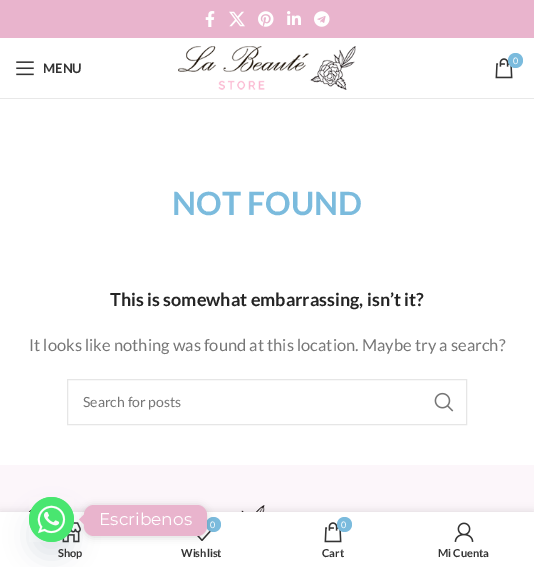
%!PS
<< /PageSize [534 567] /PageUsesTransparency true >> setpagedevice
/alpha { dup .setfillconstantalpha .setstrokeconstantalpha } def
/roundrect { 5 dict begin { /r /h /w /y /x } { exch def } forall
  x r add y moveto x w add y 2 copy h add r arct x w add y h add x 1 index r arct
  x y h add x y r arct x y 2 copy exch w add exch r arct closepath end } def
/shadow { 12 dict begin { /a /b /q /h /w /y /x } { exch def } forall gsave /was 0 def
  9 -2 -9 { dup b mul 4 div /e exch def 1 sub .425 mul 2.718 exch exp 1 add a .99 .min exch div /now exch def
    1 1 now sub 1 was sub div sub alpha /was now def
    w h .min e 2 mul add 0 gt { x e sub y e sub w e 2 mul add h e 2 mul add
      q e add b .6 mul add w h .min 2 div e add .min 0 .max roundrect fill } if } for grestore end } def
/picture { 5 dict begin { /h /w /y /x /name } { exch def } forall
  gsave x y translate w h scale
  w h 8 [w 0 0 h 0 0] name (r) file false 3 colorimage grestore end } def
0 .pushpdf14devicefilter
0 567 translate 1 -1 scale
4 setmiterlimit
1 setgray
0 0 534 567 rectfill
0.914 0.706 0.804 setrgbcolor
0 0 534 38 rectfill
(img1.rgb) 205 11 10 16 picture
(img2.rgb) 229 11 16 16 picture
(img3.rgb) 258 11 16 16 picture
(img4.rgb) 287 11 14 14 picture
(img5.rgb) 314 11 16 16 picture
0.91 setgray
0 98 534 1 rectfill
(img6.rgb) 178 46 178 44 picture
(img7.rgb) 495 58 18 21 picture
0.482 0.733 0.867 setrgbcolor
newpath 515.5 60.5 7.5 0 360 arc closepath fill
/Lato-Regular [9 0 0 -9 0 0] selectfont
1 setgray
513 64 moveto (0) show
(img8.rgb) 16 61 18 15 picture
/Lato-Bold [13 0 0 -13 0 0] selectfont
0.2 setgray
43 73 moveto (MENU) show
/Lato-Bold [32 0 0 -32 0 0] selectfont
0.482 0.733 0.867 setrgbcolor
172 215 moveto (NOT FOUND) show
/Lato-Bold [18 0 0 -18 0 0] selectfont
0.141 setgray
110 306 moveto (This is somewhat embarrassing, isn’t it?) show
/Lato-Regular [16.5 0 0 -16.5 0 0] selectfont
0.463 setgray
29 351 moveto (It looks like nothing was found at this location. Maybe try a search?) show
0.902 setgray
67.5 379.5 399 45 rectstroke
/Lato-Regular [14 0 0 -14 0 0] selectfont
0.463 setgray
83 407 moveto (Search for posts) show
(img9.rgb) 434 392 20 20 picture
0.988 0.965 0.98 setrgbcolor
0 465 534 47 rectfill
(img10.rgb) 28 505 237 7 picture
0 setgray
0 512 534 55 0 4.5 0.12 shadow
1 setgray
0 512 534 55 rectfill
(img12.rgb) 62 522 19 21 picture
0.286 0.408 0.494 setrgbcolor
29 513 45 45 22.5 12 0.16 shadow
(img11.rgb) 29 497 45 45 picture
(img13.rgb) 197 530 15 11 picture
0.482 0.733 0.867 setrgbcolor
newpath 213.5 524.5 7.5 0 360 arc closepath fill
0 setgray
84 506 123 31 10 4 0.15 shadow
0.914 0.706 0.804 setrgbcolor
84 505 123 31 10 roundrect fill
newpath 84 514.5 moveto 84 524.5 lineto 79 519.5 lineto closepath fill
/Montserrat-Thin [17 0 0 -17 0 0] selectfont
1 setgray
99 525 moveto (Escribenos) show
/Lato-Bold [11 0 0 -11 0 0] selectfont
0.2 setgray
58 557 moveto (Shop) show
/Lato-Regular [9 0 0 -9 0 0] selectfont
1 setgray
210 528 moveto (0) show
/Lato-Bold [11 0 0 -11 0 0] selectfont
0.2 setgray
181 557 moveto (Wishlist) show
(img7.rgb) 324 522 18 21 picture
0.482 0.733 0.867 setrgbcolor
newpath 344.5 524.5 7.5 0 360 arc closepath fill
/Lato-Regular [9 0 0 -9 0 0] selectfont
1 setgray
341 528 moveto (0) show
/Lato-Bold [11 0 0 -11 0 0] selectfont
0.2 setgray
322 557 moveto (Cart) show
(img14.rgb) 454 522 20 20 picture
438 557 moveto (Mi Cuenta) show
.poppdf14devicefilter showpage
